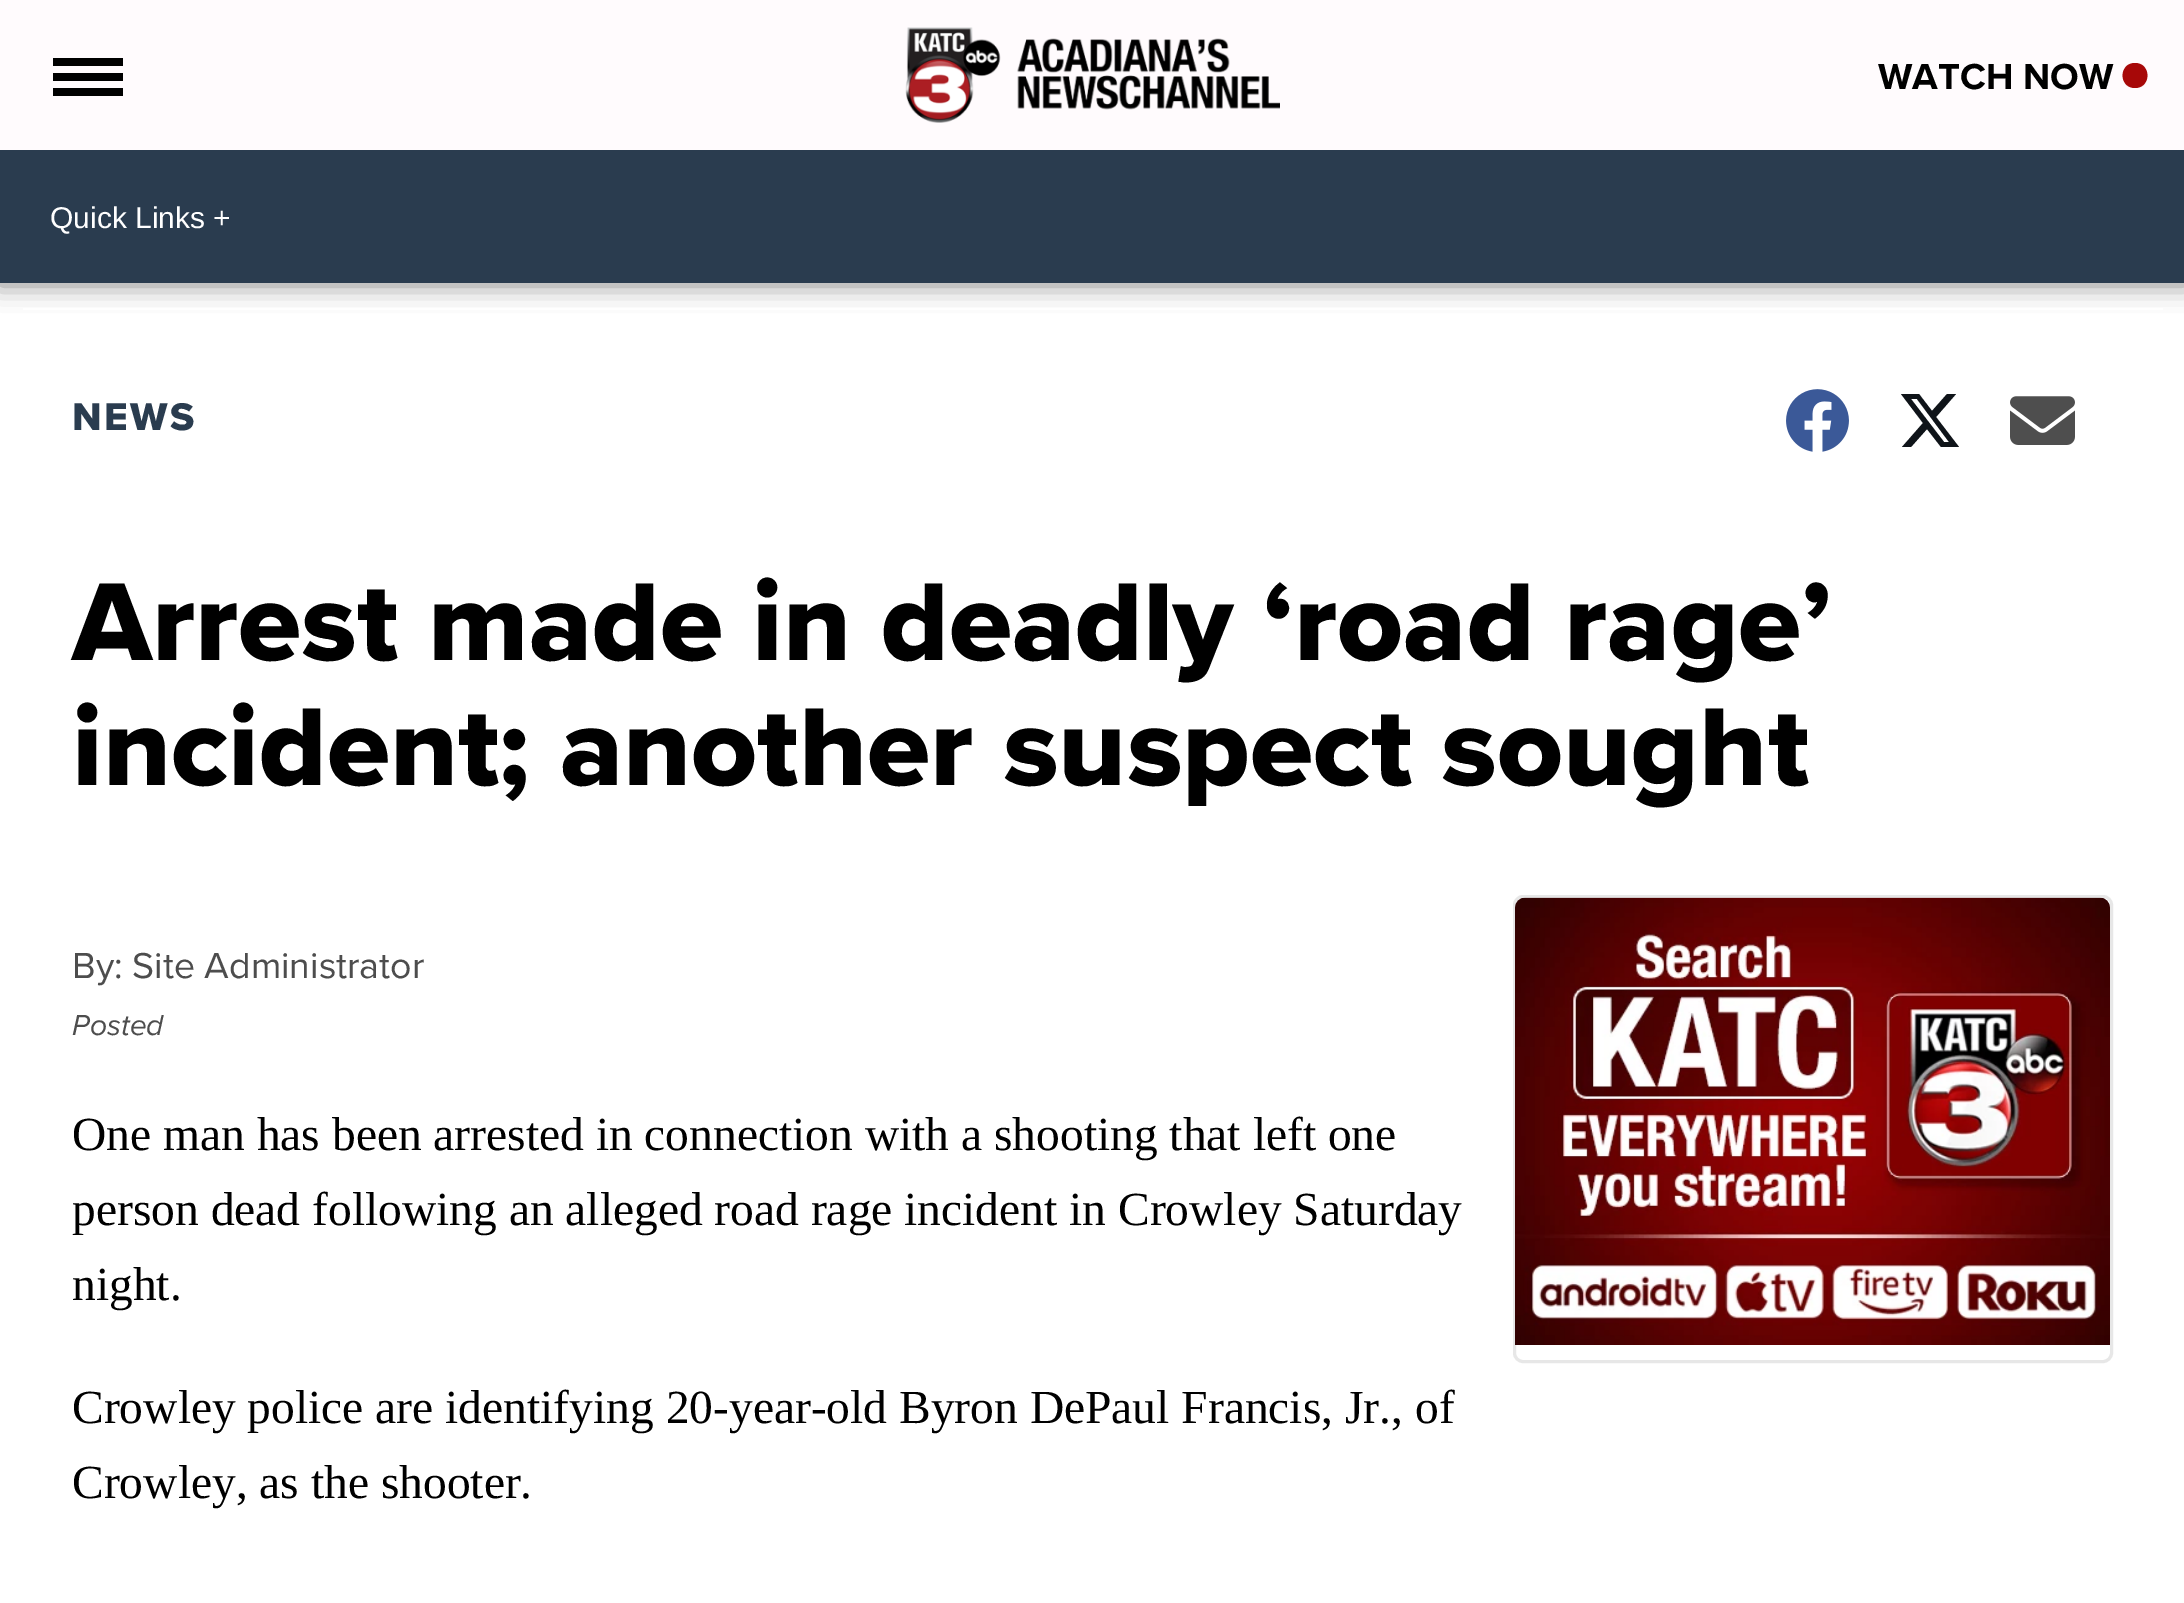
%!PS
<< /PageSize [2184 1603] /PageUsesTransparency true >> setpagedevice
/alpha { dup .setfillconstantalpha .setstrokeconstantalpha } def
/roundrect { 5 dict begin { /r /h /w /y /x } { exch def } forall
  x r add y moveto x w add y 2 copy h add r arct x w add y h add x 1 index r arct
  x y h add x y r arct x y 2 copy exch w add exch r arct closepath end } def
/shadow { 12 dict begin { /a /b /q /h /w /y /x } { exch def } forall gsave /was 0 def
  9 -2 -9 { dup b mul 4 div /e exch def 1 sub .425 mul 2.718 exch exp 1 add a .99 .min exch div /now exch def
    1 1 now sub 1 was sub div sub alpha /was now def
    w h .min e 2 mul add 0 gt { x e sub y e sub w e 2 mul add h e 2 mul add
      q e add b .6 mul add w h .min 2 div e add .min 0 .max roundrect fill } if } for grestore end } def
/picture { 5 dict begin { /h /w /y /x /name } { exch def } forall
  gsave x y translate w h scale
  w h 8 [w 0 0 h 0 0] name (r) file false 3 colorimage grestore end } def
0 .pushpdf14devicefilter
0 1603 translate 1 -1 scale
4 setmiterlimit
1 setgray
0 0 2184 1603 rectfill
0.38 setgray
-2 -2 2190 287 0 12.5 0.76 shadow
1 0.984 0.992 setrgbcolor
0 0 2184 150 rectfill
0 setgray
53 58 70 8 rectfill
53 73 70 8 rectfill
53 88 70 8 rectfill
(img1.rgb) 905 27 375 96 picture
/ProximaNova-Bold [37.5 0 0 -37.5 0 0] selectfont
1878 89 moveto (WATCH NOW) show
0.655 0.031 0.031 setrgbcolor
newpath 2135 88 moveto 2151.5 88 2151.5 63 2135 63 curveto 2118.5 63 2118.5 88 2135 88 curveto closepath fill
0.165 0.235 0.31 setrgbcolor
0 150 2184 133 rectfill
/LiberationSans-Regular [30 0 0 -30 0 0] selectfont
1 setgray
50 228 moveto (Quick Links +) show
23 308 2140 2 rectfill
/ProximaNova-ExtraBold [40 0 0 -40 0 0] selectfont
0.165 0.235 0.31 setrgbcolor
72 430 moveto 2.5 0 (NEWS) ashow
(img2.rgb) 1786 389 63 63 picture
0.059 0.078 0.098 setrgbcolor
newpath 1947 394 moveto 1956 394 lineto 1936 417 lineto 1959 447 lineto 1941 447 lineto 1927 429 lineto 1911 447 lineto 1902 447 lineto 1923 423 lineto 1901 394 lineto 1919 394 lineto 1932 411 lineto closepath 1944 442 moveto 1949 442 lineto 1917 399 lineto 1911 399 lineto closepath fill
(img3.rgb) 2010 396 65 49 picture
/ProximaNova-ExtraBold [115 0 0 -115 0 0] selectfont
0 setgray
72 660 moveto (Arrest made in deadly ‘road rage’) show
72 785 moveto (incident; another suspect sought) show
/ProximaNova-Regular [37.5 0 0 -37.5 0 0] selectfont
0.302 setgray
72 978 moveto (By: Site Administrator) show
/ProximaNova-Italic [30 0 0 -30 0 0] selectfont
72 1035 moveto (Posted) show
/LiberationSerif-Regular [47.5 0 0 -47.5 0 0] selectfont
0 setgray
72 1150 moveto (One man has been arrested in connection with a shooting that left one) show
72 1225 moveto (person dead following an alleged road rage incident in Crowley Saturday) show
72 1300 moveto (night.) show
72 1423 moveto (Crowley police are identifying 20-year-old Byron DePaul Francis, Jr., of) show
72 1498 moveto (Crowley, as the shooter.) show
0.906 setgray
3 setlinewidth
1514.5 896.5 597 465 8.5 roundrect stroke
(img4.rgb) 1515 897 595 448 picture
.poppdf14devicefilter showpage
